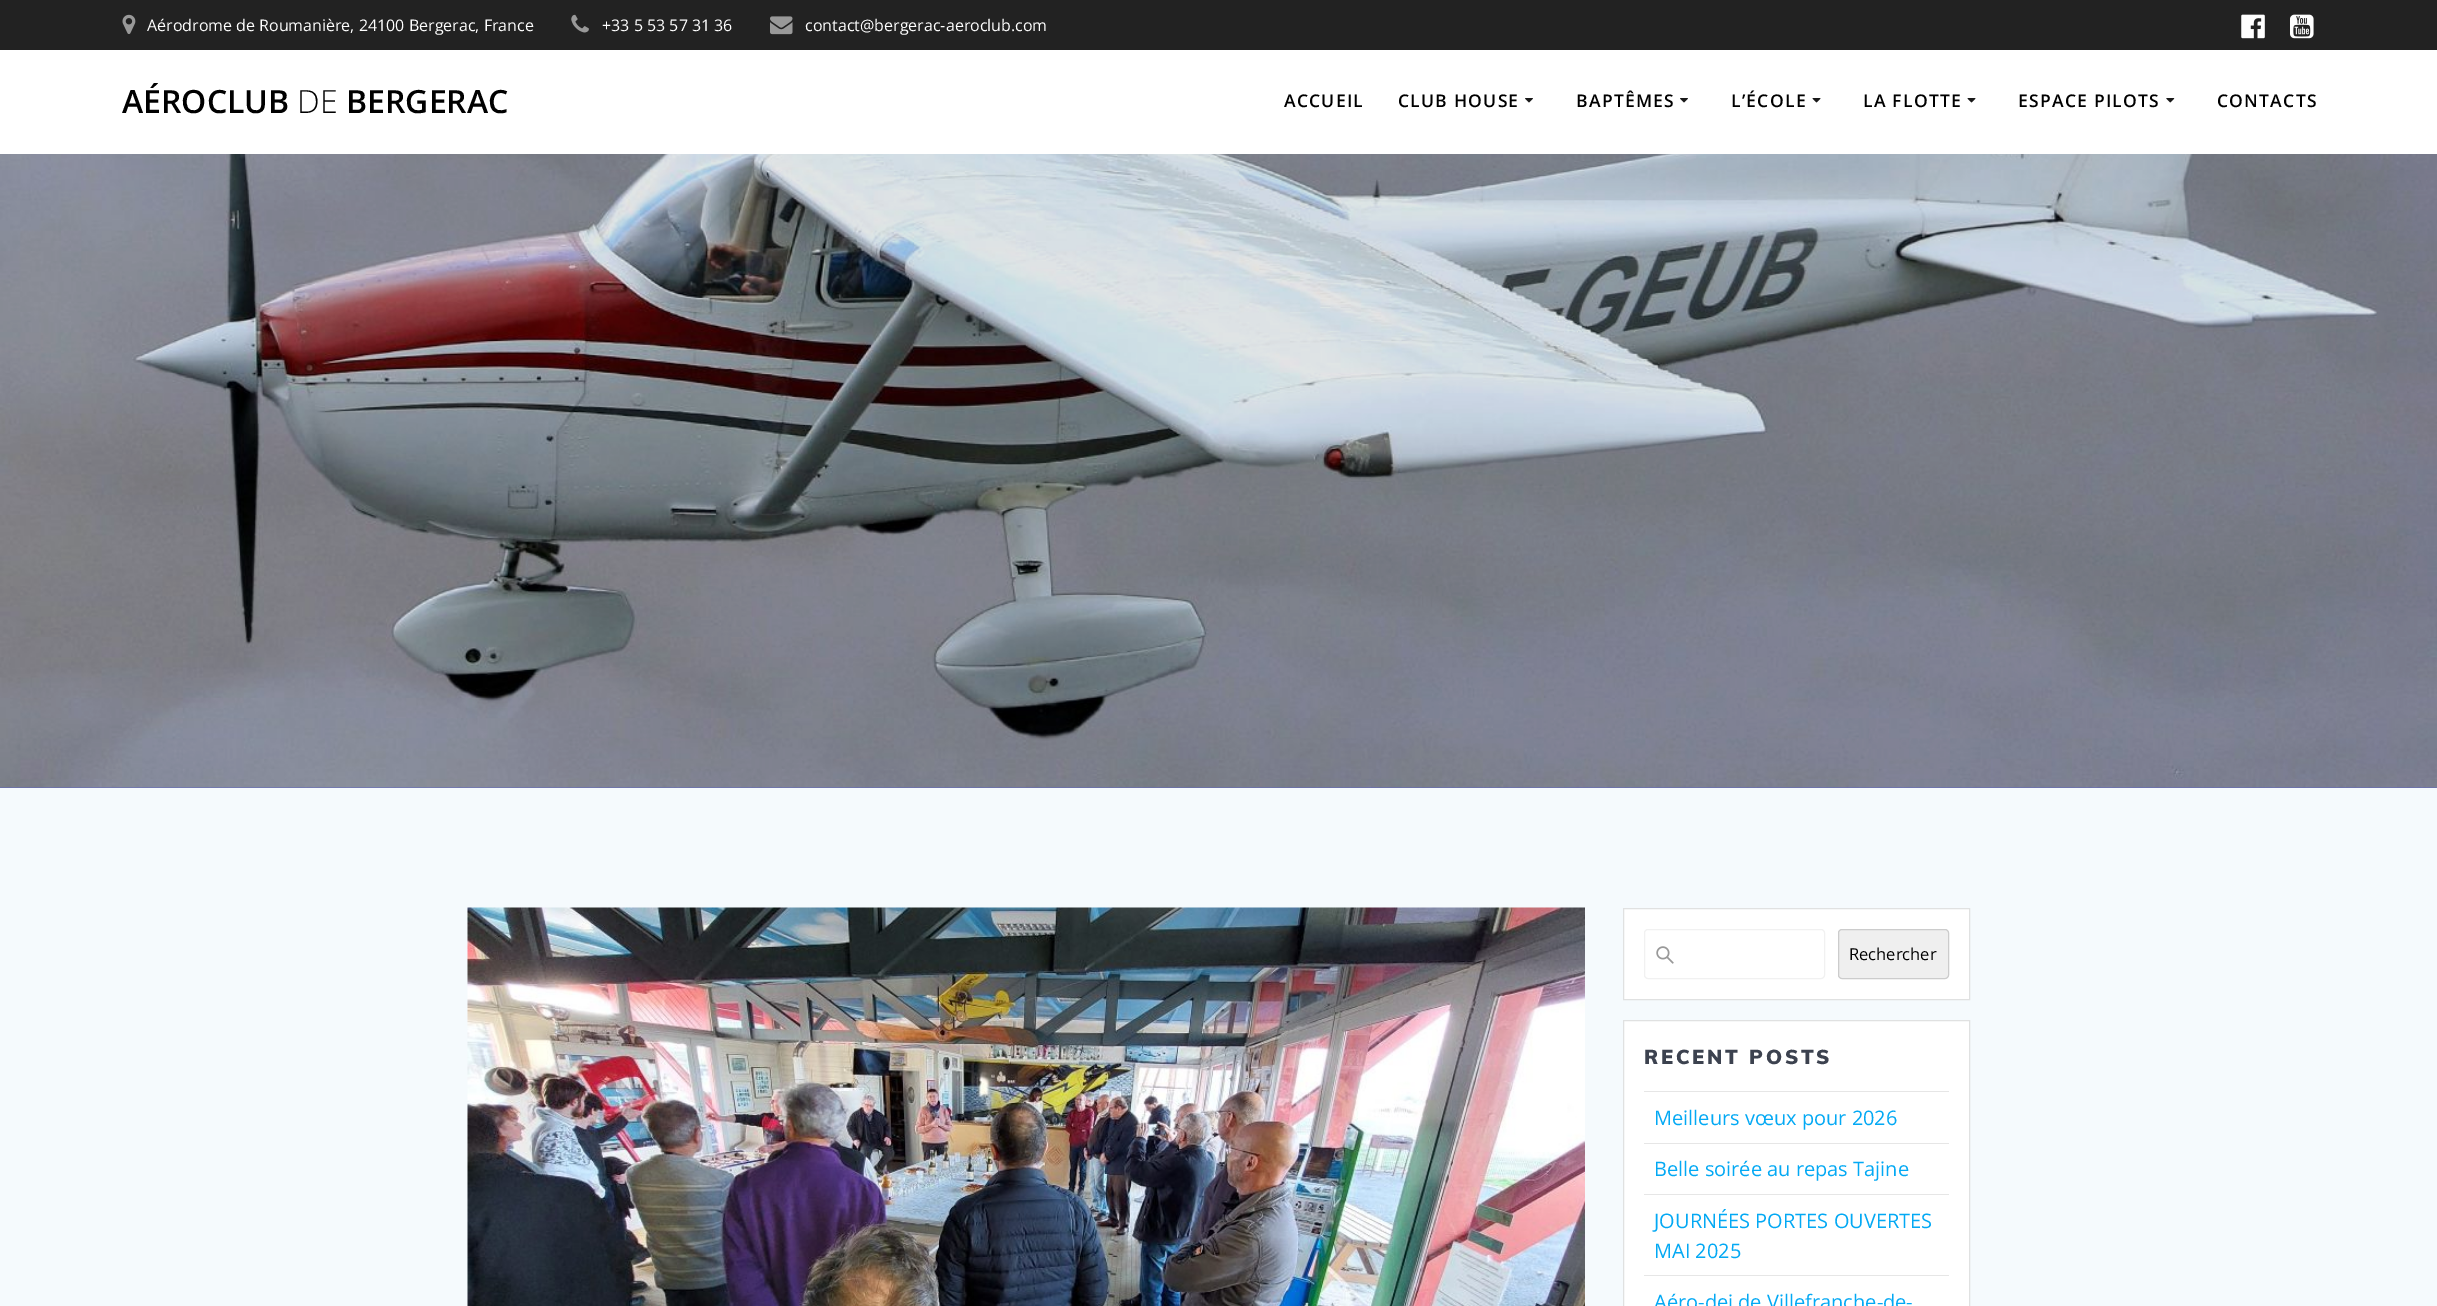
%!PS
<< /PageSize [2437 1306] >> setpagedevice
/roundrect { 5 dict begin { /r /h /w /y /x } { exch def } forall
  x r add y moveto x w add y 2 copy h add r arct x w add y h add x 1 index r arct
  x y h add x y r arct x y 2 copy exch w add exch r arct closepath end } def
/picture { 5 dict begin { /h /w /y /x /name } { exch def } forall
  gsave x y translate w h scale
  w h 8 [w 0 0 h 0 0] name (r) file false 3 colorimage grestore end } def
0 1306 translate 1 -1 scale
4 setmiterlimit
0.373 0.408 0.769 setrgbcolor
0 0 2437 1306 rectfill
0.133 setgray
0 0 2437 50 rectfill
(img1.rgb) 122 14 14 20 picture
/OpenSans-Regular [16 0 0 -16 0 0] selectfont
1 setgray
147 31 moveto (Aérodrome de Roumanière, 24100 Bergerac, France) show
(img2.rgb) 571 14 18 19 picture
602 31 moveto (+33 5 53 57 31 36) show
(img3.rgb) 770 16 23 19 picture
805 31 moveto (contact@bergerac-aeroclub.com) show
(img4.rgb) 2241 14 24 25 picture
(img5.rgb) 2290 14 24 25 picture
0 50 2437 104 rectfill
/OpenSans-SemiBold [32 0 0 -32 0 0] selectfont
0 setgray
122 113 moveto (AÉROCLUB) show
/OpenSans-Light [32 0 0 -32 0 0] selectfont
297 113 moveto (DE) show
/OpenSans-SemiBold [32 0 0 -32 0 0] selectfont
346 113 moveto (BERGERAC) show
/OpenSans-SemiBold [17.5 0 0 -17.5 0 0] selectfont
1284 107 moveto 1.25 0 (ACCUEIL) ashow
1398 107 moveto 1.25 0 (CLUB HOUSE) ashow
(img6.rgb) 1525 98 8 5 picture
1576 107 moveto 1.25 0 (BAPTÊMES) ashow
(img6.rgb) 1680 98 8 5 picture
1731 107 moveto 1.25 0 (L’ÉCOLE) ashow
(img7.rgb) 1812 98 9 5 picture
1863 107 moveto 1.25 0 (LA FLOTTE) ashow
(img7.rgb) 1967 98 9 5 picture
2018 107 moveto 1.25 0 (ESPACE PILOTS) ashow
(img8.rgb) 2166 98 9 5 picture
2217 107 moveto 1.25 0 (CONTACTS) ashow
(img9.rgb) 0 154 2437 634 picture
0.961 0.98 0.992 setrgbcolor
0 788 2437 518 rectfill
(img10.rgb) 467 907 1118 399 picture
1 setgray
newpath 1623.5 908.5 moveto 1969.5 908.5 lineto 1969.5 999.5 lineto 1623.5 999.5 lineto closepath gsave fill grestore
0.878 0.882 0.882 setrgbcolor
stroke
(img11.rgb) 1656 946 18 18 picture
0.945 setgray
1644.5 929.5 180 49 3.5 roundrect stroke
0.937 setgray
1838.5 929.5 110 49 3.5 roundrect gsave fill grestore
0.8 setgray
stroke
/OpenSans-Regular [16.5 0 0 -16.5 0 0] selectfont
0 setgray
1849 960 moveto (Rechercher) show
1 setgray
newpath 1623.5 1020.5 moveto 1969.5 1020.5 lineto 1969.5 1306.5 lineto 1623.5 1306.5 lineto closepath gsave fill grestore
0.878 0.882 0.882 setrgbcolor
stroke
/Muli-Black [20 0 0 -20 0 0] selectfont
0.235 0.259 0.31 setrgbcolor
1644 1064 moveto 2.75 0 (RECENT POSTS) ashow
0.902 setgray
1644 1091 305 1 rectfill
/OpenSans-Regular [20 0 0 -20 0 0] selectfont
0.012 0.663 0.957 setrgbcolor
1654 1125 moveto (Meilleurs vœux pour 2026) show
0.902 setgray
1644 1143 305 1 rectfill
0.012 0.663 0.957 setrgbcolor
1654 1176 moveto (Belle soirée au repas Tajine) show
0.902 setgray
1644 1194 305 1 rectfill
0.012 0.663 0.957 setrgbcolor
1654 1228 moveto (JOURNÉES PORTES OUVERTES) show
1654 1258 moveto (MAI 2025) show
0.902 setgray
1644 1275 305 1 rectfill
0.012 0.663 0.957 setrgbcolor
1654 1309 moveto (Aéro-dej de Villefranche-de-) show
showpage
